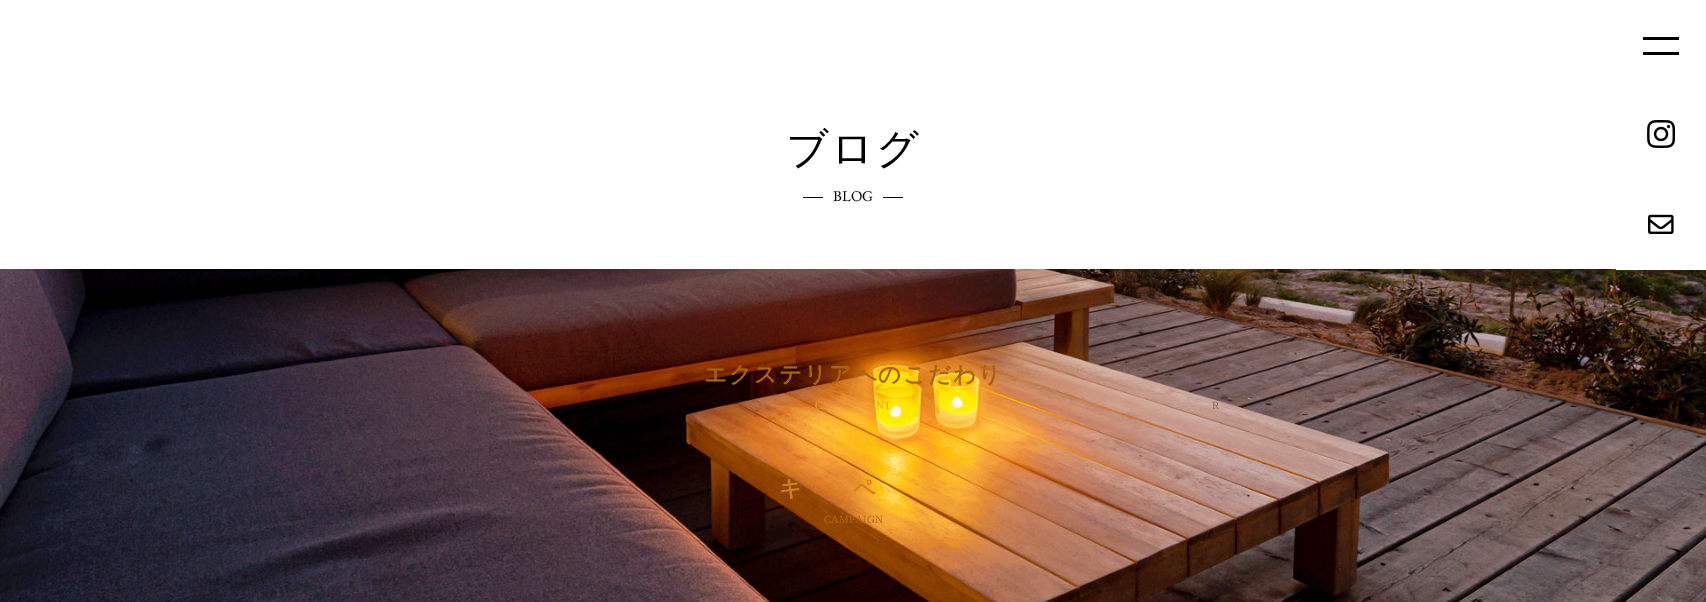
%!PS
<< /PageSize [1706 602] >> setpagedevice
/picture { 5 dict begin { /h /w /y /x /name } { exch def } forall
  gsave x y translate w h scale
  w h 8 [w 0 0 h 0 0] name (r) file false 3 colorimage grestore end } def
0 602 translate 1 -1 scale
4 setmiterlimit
1 setgray
0 0 1706 602 rectfill
/WenQuanYiZenHei-Medium [42 0 0 -42 0 0] selectfont
0 setgray
786 163 moveto 2 0 (ブログ) ashow
803 197 20 1 rectfill
/EBGaramond-Regular [15 0 0 -15 0 0] selectfont
833 201 moveto (BLOG) show
883 197 20 1 rectfill
(img1.rgb) 0 269 1706 333 picture
1643 37 36 3 rectfill
1643 52 36 3 rectfill
(img2.rgb) 1647 120 29 28 picture
1 setgray
1616 269 90 1 rectfill
(img3.rgb) 1648 214 26 20 picture
/WenQuanYiZenHei-Bold [22.4 0 0 -22.4 0 0] selectfont
0.651 0.396 0.059 setrgbcolor
704 382 moveto 2 0 (エクステリアへのこだわり) ashow
/LiberationSerif-Regular [11 0 0 -11 0 0] selectfont
0.941 0.635 0.149 setrgbcolor
815 409 moveto (C) show
876 409 moveto (NT) show
0.518 0.416 0.404 setrgbcolor
1212 409 moveto (R) show
/WenQuanYiZenHei-Bold [22.4 0 0 -22.4 0 0] selectfont
0.812 0.502 0.11 setrgbcolor
779 496 moveto 2 0 (キ) ashow
853 496 moveto 2 0 (ペ) ashow
/LiberationSerif-Regular [11 0 0 -11 0 0] selectfont
0.71 0.4 0.082 setrgbcolor
824 523 moveto (CAMPAIGN) show
showpage
